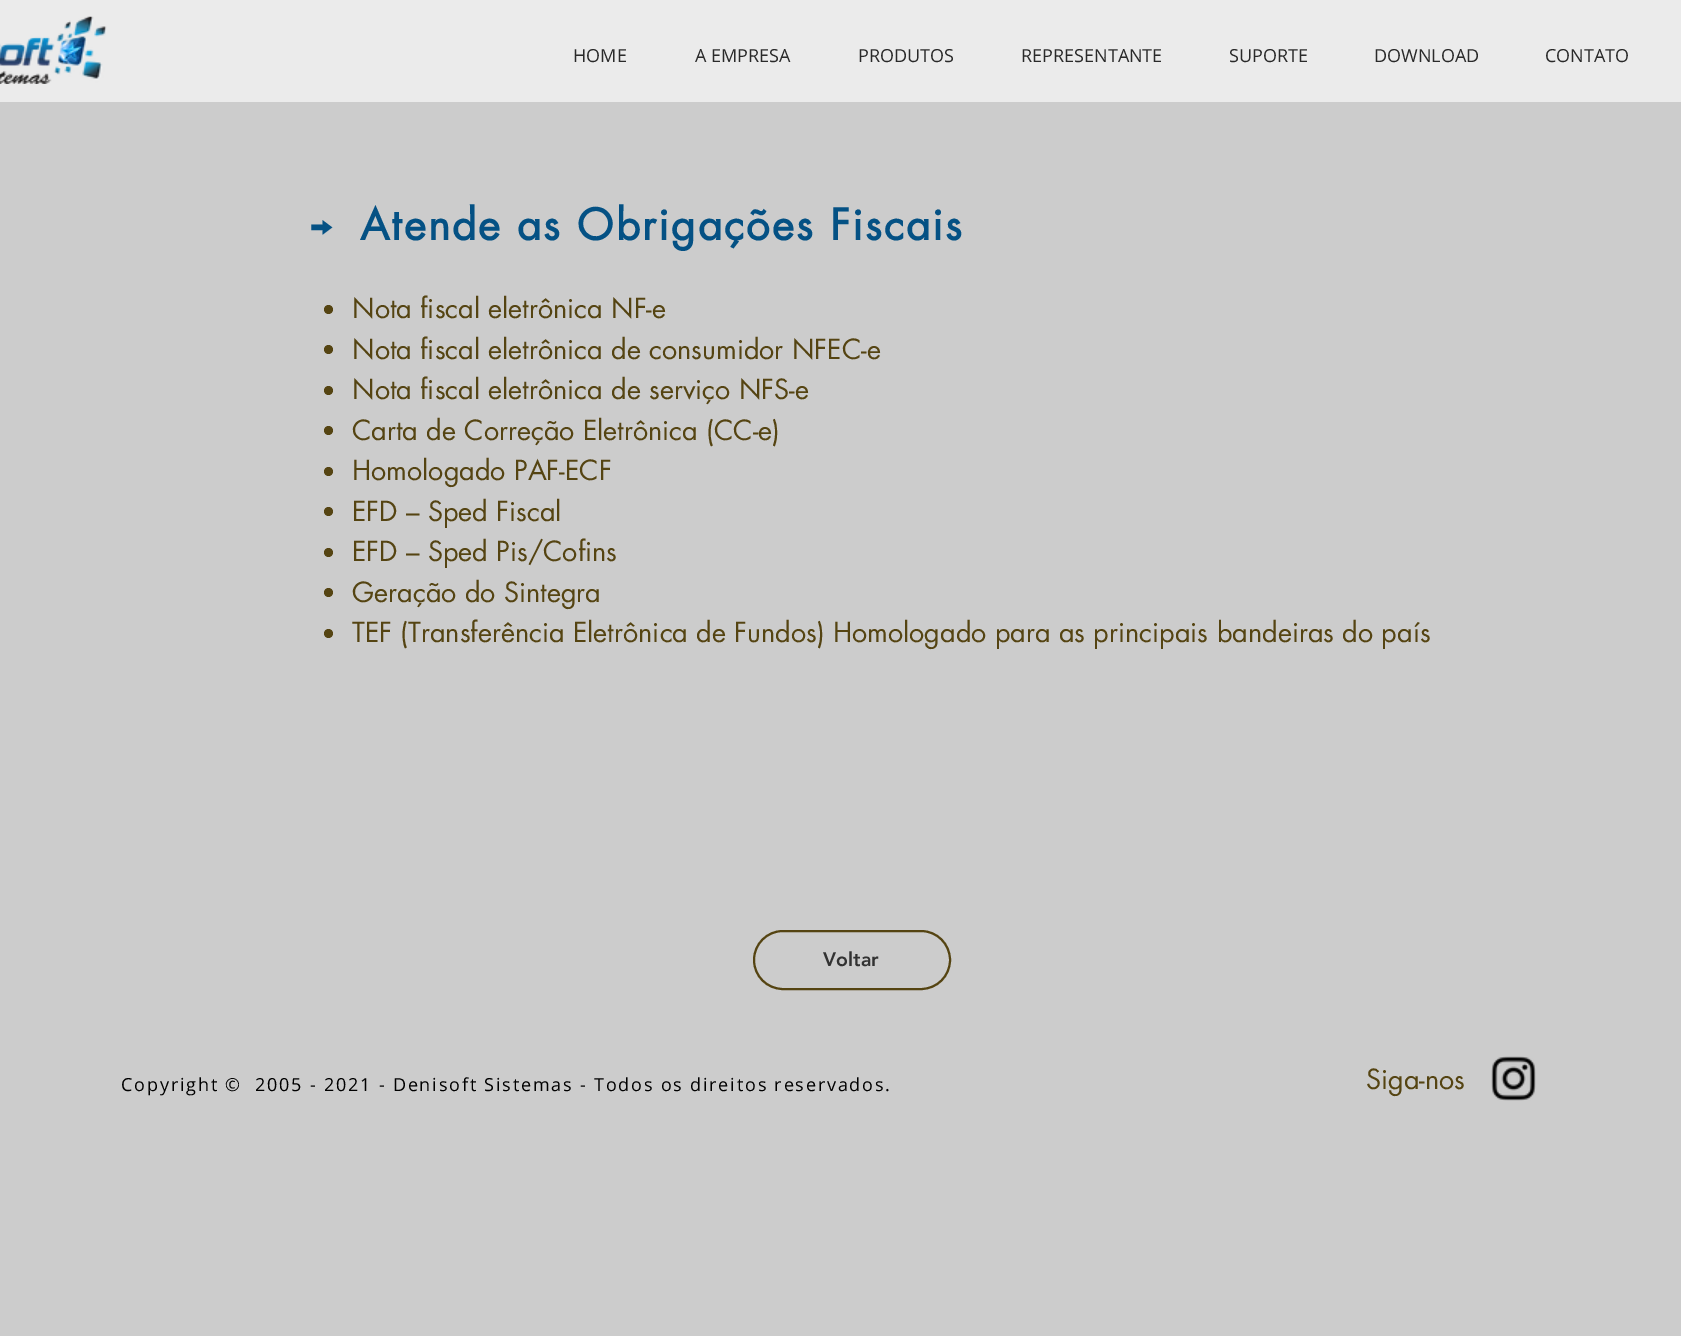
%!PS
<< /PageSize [1681 1336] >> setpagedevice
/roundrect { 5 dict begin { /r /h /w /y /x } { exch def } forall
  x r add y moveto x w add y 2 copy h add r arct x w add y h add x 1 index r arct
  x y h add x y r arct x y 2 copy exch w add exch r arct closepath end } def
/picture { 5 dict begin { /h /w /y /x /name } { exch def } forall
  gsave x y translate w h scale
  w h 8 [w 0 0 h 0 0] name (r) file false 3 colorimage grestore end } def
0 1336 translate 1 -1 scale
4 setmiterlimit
0.8 setgray
0 0 1681 1336 rectfill
0.922 setgray
0 0 1681 102 rectfill
(img1.rgb) 0 16 107 68 picture
/OpenSans-Regular [18 0 0 -18 0 0] selectfont
0.165 setgray
573 62 moveto (HOME) show
695 62 moveto (A EMPRESA) show
858 62 moveto (PRODUTOS) show
1021 62 moveto (REPRESENTANTE) show
1229 62 moveto (SUPORTE) show
1374 62 moveto (DOWNLOAD) show
1545 62 moveto (CONTATO) show
/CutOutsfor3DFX-Regular [42 0 0 -42 0 0] selectfont
0.016 0.318 0.518 setrgbcolor
304 240 moveto (I) show
/futura-Bold [42 0 0 -42 0 0] selectfont
360 240 moveto 2.1 0 (Atende as Obrigações Fiscais) ashow
0.333 0.267 0.071 setrgbcolor
newpath 328.5 309.5 4.5 0 360 arc closepath fill
/futura-Regular [27 0 0 -27 0 0] selectfont
352 318 moveto (Nota fiscal eletrônica NF-e) show
newpath 328.5 349.5 4.5 0 360 arc closepath fill
352 359 moveto (Nota fiscal eletrônica de consumidor NFEC-e) show
newpath 328.5 390.5 4.5 0 360 arc closepath fill
352 399 moveto (Nota fiscal eletrônica de serviço NFS-e) show
newpath 328.5 430.5 4.5 0 360 arc closepath fill
352 440 moveto (Carta de Correção Eletrônica \(CC-e\)) show
newpath 328.5 471.5 4.5 0 360 arc closepath fill
352 480 moveto (Homologado PAF-ECF) show
newpath 328.5 511.5 4.5 0 360 arc closepath fill
352 521 moveto (EFD – Sped Fiscal) show
newpath 328.5 552.5 4.5 0 360 arc closepath fill
352 561 moveto (EFD – Sped Pis/Cofins) show
newpath 328.5 592.5 4.5 0 360 arc closepath fill
352 602 moveto (Geração do Sintegra) show
newpath 328.5 633.5 4.5 0 360 arc closepath fill
352 642 moveto (TEF \(Transferência Eletrônica de Fundos\) Homologado para as principais bandeiras do país) show
2 setlinewidth
754 931 196 58 29 roundrect stroke
/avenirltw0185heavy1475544-Black [19.5 0 0 -19.5 0 0] selectfont
0.196 setgray
823 966 moveto (Voltar) show
/OpenSans-Regular [18 0 0 -18 0 0] selectfont
0 setgray
121 1091 moveto 1.8 0 (Copyright ©  2005 - 2021 - Denisoft Sistemas - Todos os direitos reservados.) ashow
/futura-Regular [27 0 0 -27 0 0] selectfont
0.333 0.267 0.071 setrgbcolor
1366 1089 moveto (Siga-nos) show
(img2.rgb) 1491 1056 45 45 picture
showpage
